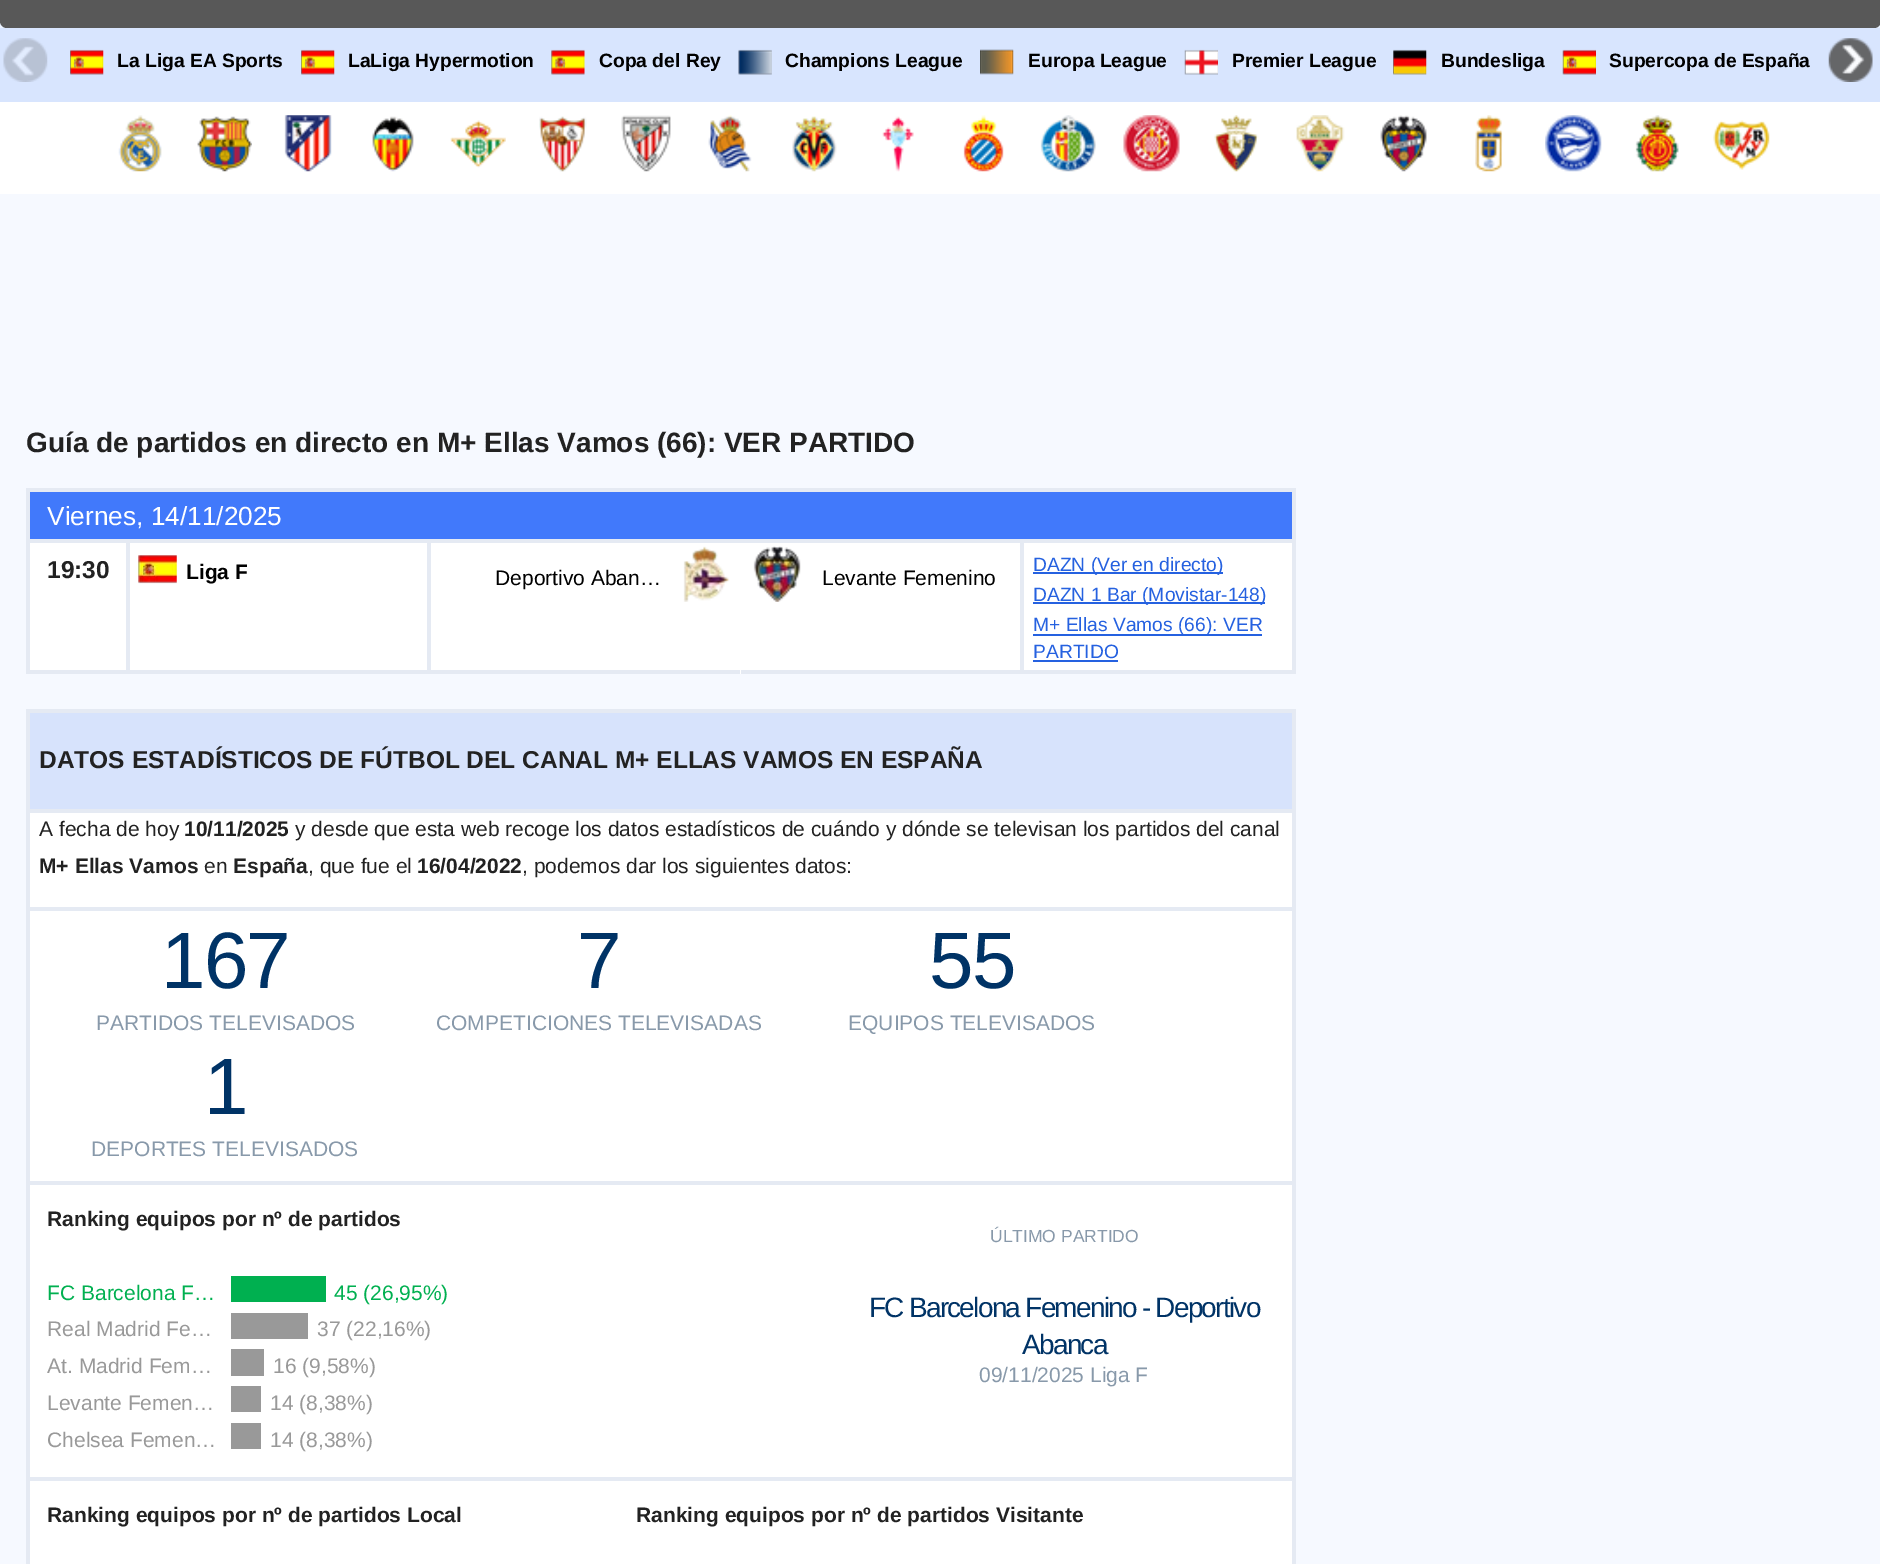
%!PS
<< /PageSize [1880 1564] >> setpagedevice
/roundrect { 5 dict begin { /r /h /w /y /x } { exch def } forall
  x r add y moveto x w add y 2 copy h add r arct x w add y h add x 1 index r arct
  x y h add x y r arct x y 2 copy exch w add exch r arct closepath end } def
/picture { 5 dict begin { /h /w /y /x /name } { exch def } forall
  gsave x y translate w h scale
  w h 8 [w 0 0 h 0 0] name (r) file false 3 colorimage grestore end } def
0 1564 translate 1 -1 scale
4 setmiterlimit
0.918 0.949 1 setrgbcolor
0 0 1880 1564 rectfill
0.345 setgray
0 -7 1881 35 7 roundrect fill
0.847 0.898 0.996 setrgbcolor
0 28 1880 74 rectfill
(img1.rgb) 3 38 45 44 picture
(img2.rgb) 70 49 34 26 picture
/LiberationSans-Bold [19.25 0 0 -19.25 0 0] selectfont
0 setgray
117 67 moveto (La Liga EA Sports) show
(img2.rgb) 301 49 34 26 picture
348 67 moveto (LaLiga Hypermotion) show
(img3.rgb) 551 49 34 26 picture
599 67 moveto (Copa del Rey) show
(img4.rgb) 738 49 34 26 picture
785 67 moveto (Champions League) show
(img5.rgb) 980 49 34 26 picture
1028 67 moveto (Europa League) show
(img6.rgb) 1184 49 34 26 picture
1232 67 moveto (Premier League) show
(img7.rgb) 1393 49 34 26 picture
1441 67 moveto (Bundesliga) show
(img8.rgb) 1562 49 34 26 picture
1609 67 moveto (Supercopa de España) show
(img9.rgb) 1828 38 45 44 picture
1 setgray
0 102 1880 92 rectfill
(img10.rgb) 118 115 44 57 picture
(img11.rgb) 197 116 55 56 picture
(img12.rgb) 284 115 48 57 picture
(img13.rgb) 372 116 42 56 picture
(img14.rgb) 450 120 56 48 picture
(img15.rgb) 539 116 48 56 picture
(img16.rgb) 621 115 50 57 picture
(img17.rgb) 708 115 44 57 picture
(img18.rgb) 792 116 45 56 picture
(img19.rgb) 882 116 32 56 picture
(img20.rgb) 963 115 41 57 picture
(img21.rgb) 1040 115 56 57 picture
(img22.rgb) 1123 115 57 57 picture
(img23.rgb) 1214 115 45 57 picture
(img24.rgb) 1296 115 49 57 picture
(img25.rgb) 1380 115 47 57 picture
(img26.rgb) 1475 115 28 57 picture
(img27.rgb) 1545 115 57 57 picture
(img28.rgb) 1635 115 44 57 picture
(img29.rgb) 1713 120 57 50 picture
0.965 0.976 1 setrgbcolor
0 194 1880 1370 rectfill
/LiberationSans-Bold [28 0 0 -28 0 0] selectfont
0.133 setgray
26 452 moveto (Guía de partidos en directo en M+ Ellas Vamos \(66\): VER PARTIDO) show
1 setgray
30 543 1262 127 rectfill
0.255 0.475 0.984 setrgbcolor
30 492 1262 47 rectfill
0.898 0.918 0.953 setrgbcolor
26 488 1269 4 rectfill
1292 539 4 135 rectfill
1292 488 4 55 rectfill
26 670 1269 4 rectfill
26 539 4 135 rectfill
26 488 4 55 rectfill
126 539 4 135 rectfill
1 setgray
737 539 4 135 rectfill
0.898 0.918 0.953 setrgbcolor
427 539 4 135 rectfill
1020 539 4 135 rectfill
26 539 1269 4 rectfill
/LiberationSans-Regular [26.25 0 0 -26.25 0 0] selectfont
1 setgray
47 525 moveto (Viernes, 14/11/2025) show
/LiberationSans-Bold [24.5 0 0 -24.5 0 0] selectfont
0.133 setgray
47 578 moveto (19:30) show
(img30.rgb) 138 555 39 29 picture
/LiberationSans-Bold [21 0 0 -21 0 0] selectfont
0 setgray
186 579 moveto (Liga F) show
0.898 0.918 0.953 setrgbcolor
737 670 3 4 rectfill
/LiberationSans-Regular [21 0 0 -21 0 0] selectfont
0 setgray
495 585 moveto (Deportivo Aban…) show
(img31.rgb) 683 546 47 56 picture
(img32.rgb) 753 546 48 56 picture
822 585 moveto (Levante Femenino) show
0.145 0.38 0.878 setrgbcolor
1033 572 190 2 rectfill
/LiberationSans-Regular [19.25 0 0 -19.25 0 0] selectfont
1033 571 moveto (DAZN \(Ver en directo\)) show
1033 602 232 2 rectfill
1033 601 moveto (DAZN 1 Bar \(Movistar-148\)) show
1033 634 229 2 rectfill
1033 631 moveto (M+ Ellas Vamos \(66\): VER) show
1033 658 moveto (PARTIDO) show
1033 660 85 2 rectfill
1 setgray
30 813 1262 751 rectfill
0.843 0.89 0.988 setrgbcolor
30 713 1262 96 rectfill
0.898 0.918 0.953 setrgbcolor
26 709 1269 4 rectfill
26 809 1269 4 rectfill
26 907 1269 4 rectfill
26 1181 1269 4 rectfill
26 1477 1269 4 rectfill
1292 1477 4 87 rectfill
1292 1181 4 300 rectfill
1292 907 4 278 rectfill
1292 809 4 101 rectfill
1292 709 4 103 rectfill
26 1477 4 87 rectfill
26 1181 4 300 rectfill
26 907 4 278 rectfill
26 809 4 101 rectfill
26 709 4 103 rectfill
/LiberationSans-Bold [24.5 0 0 -24.5 0 0] selectfont
0.133 setgray
39 768 moveto (DATOS ESTADÍSTICOS DE FÚTBOL DEL CANAL M+ ELLAS VAMOS EN ESPAÑA) show
/LiberationSans-Regular [21 0 0 -21 0 0] selectfont
39 836 moveto (A fecha de hoy) show
/LiberationSans-Bold [21 0 0 -21 0 0] selectfont
184 836 moveto (10/11/2025) show
/LiberationSans-Regular [21 0 0 -21 0 0] selectfont
295 836 moveto (y desde que esta web recoge los datos estadísticos de cuándo y dónde se televisan los partidos del canal) show
/LiberationSans-Bold [21 0 0 -21 0 0] selectfont
39 873 moveto (M+ Ellas Vamos) show
/LiberationSans-Regular [21 0 0 -21 0 0] selectfont
204 873 moveto (en) show
/LiberationSans-Bold [21 0 0 -21 0 0] selectfont
233 873 moveto (España) show
/LiberationSans-Regular [21 0 0 -21 0 0] selectfont
308 873 moveto (, que fue el) show
/LiberationSans-Bold [21 0 0 -21 0 0] selectfont
417 873 moveto (16/04/2022) show
/LiberationSans-Regular [21 0 0 -21 0 0] selectfont
522 873 moveto (, podemos dar los siguientes datos:) show
/LiberationSans-Regular [80 0 0 -80 0 0] selectfont
0 0.2 0.4 setrgbcolor
161 988 moveto -1.75 0 (167) ashow
/LiberationSans-Regular [21 0 0 -21 0 0] selectfont
0.533 0.6 0.667 setrgbcolor
96 1030 moveto (PARTIDOS TELEVISADOS) show
/LiberationSans-Regular [80 0 0 -80 0 0] selectfont
0 0.2 0.4 setrgbcolor
577 988 moveto -1.75 0 (7) ashow
/LiberationSans-Regular [21 0 0 -21 0 0] selectfont
0.533 0.6 0.667 setrgbcolor
436 1030 moveto (COMPETICIONES TELEVISADAS) show
/LiberationSans-Regular [80 0 0 -80 0 0] selectfont
0 0.2 0.4 setrgbcolor
929 988 moveto -1.75 0 (55) ashow
/LiberationSans-Regular [21 0 0 -21 0 0] selectfont
0.533 0.6 0.667 setrgbcolor
848 1030 moveto (EQUIPOS TELEVISADOS) show
/LiberationSans-Regular [80 0 0 -80 0 0] selectfont
0 0.2 0.4 setrgbcolor
204 1114 moveto -1.75 0 (1) ashow
/LiberationSans-Regular [21 0 0 -21 0 0] selectfont
0.533 0.6 0.667 setrgbcolor
91 1156 moveto (DEPORTES TELEVISADOS) show
/LiberationSans-Bold [21 0 0 -21 0 0] selectfont
0.133 setgray
47 1226 moveto (Ranking equipos por nº de partidos) show
/LiberationSans-Regular [21 0 0 -21 0 0] selectfont
0 0.69 0.314 setrgbcolor
47 1300 moveto (FC Barcelona F…) show
231 1276 95 26 rectfill
334 1300 moveto (45 \(26,95%\)) show
0.6 setgray
47 1336 moveto (Real Madrid Fe…) show
231 1313 77 26 rectfill
317 1336 moveto (37 \(22,16%\)) show
47 1373 moveto (At. Madrid Fem…) show
231 1349 33 27 rectfill
273 1373 moveto (16 \(9,58%\)) show
47 1410 moveto (Levante Femen…) show
231 1386 30 26 rectfill
270 1410 moveto (14 \(8,38%\)) show
47 1447 moveto (Chelsea Femen…) show
231 1423 30 26 rectfill
270 1447 moveto (14 \(8,38%\)) show
/LiberationSans-Regular [17.5 0 0 -17.5 0 0] selectfont
0.533 0.6 0.667 setrgbcolor
990 1242 moveto (ÚLTIMO PARTIDO) show
/LiberationSans-Regular [28 0 0 -28 0 0] selectfont
0 0.2 0.4 setrgbcolor
869 1317 moveto -1.75 0 (FC Barcelona Femenino - Deportivo) ashow
1022 1354 moveto -1.75 0 (Abanca) ashow
/LiberationSans-Regular [21 0 0 -21 0 0] selectfont
0.533 0.6 0.667 setrgbcolor
979 1382 moveto (09/11/2025 Liga F) show
/LiberationSans-Bold [21 0 0 -21 0 0] selectfont
0.133 setgray
47 1522 moveto (Ranking equipos por nº de partidos Local) show
636 1522 moveto (Ranking equipos por nº de partidos Visitante) show
showpage
